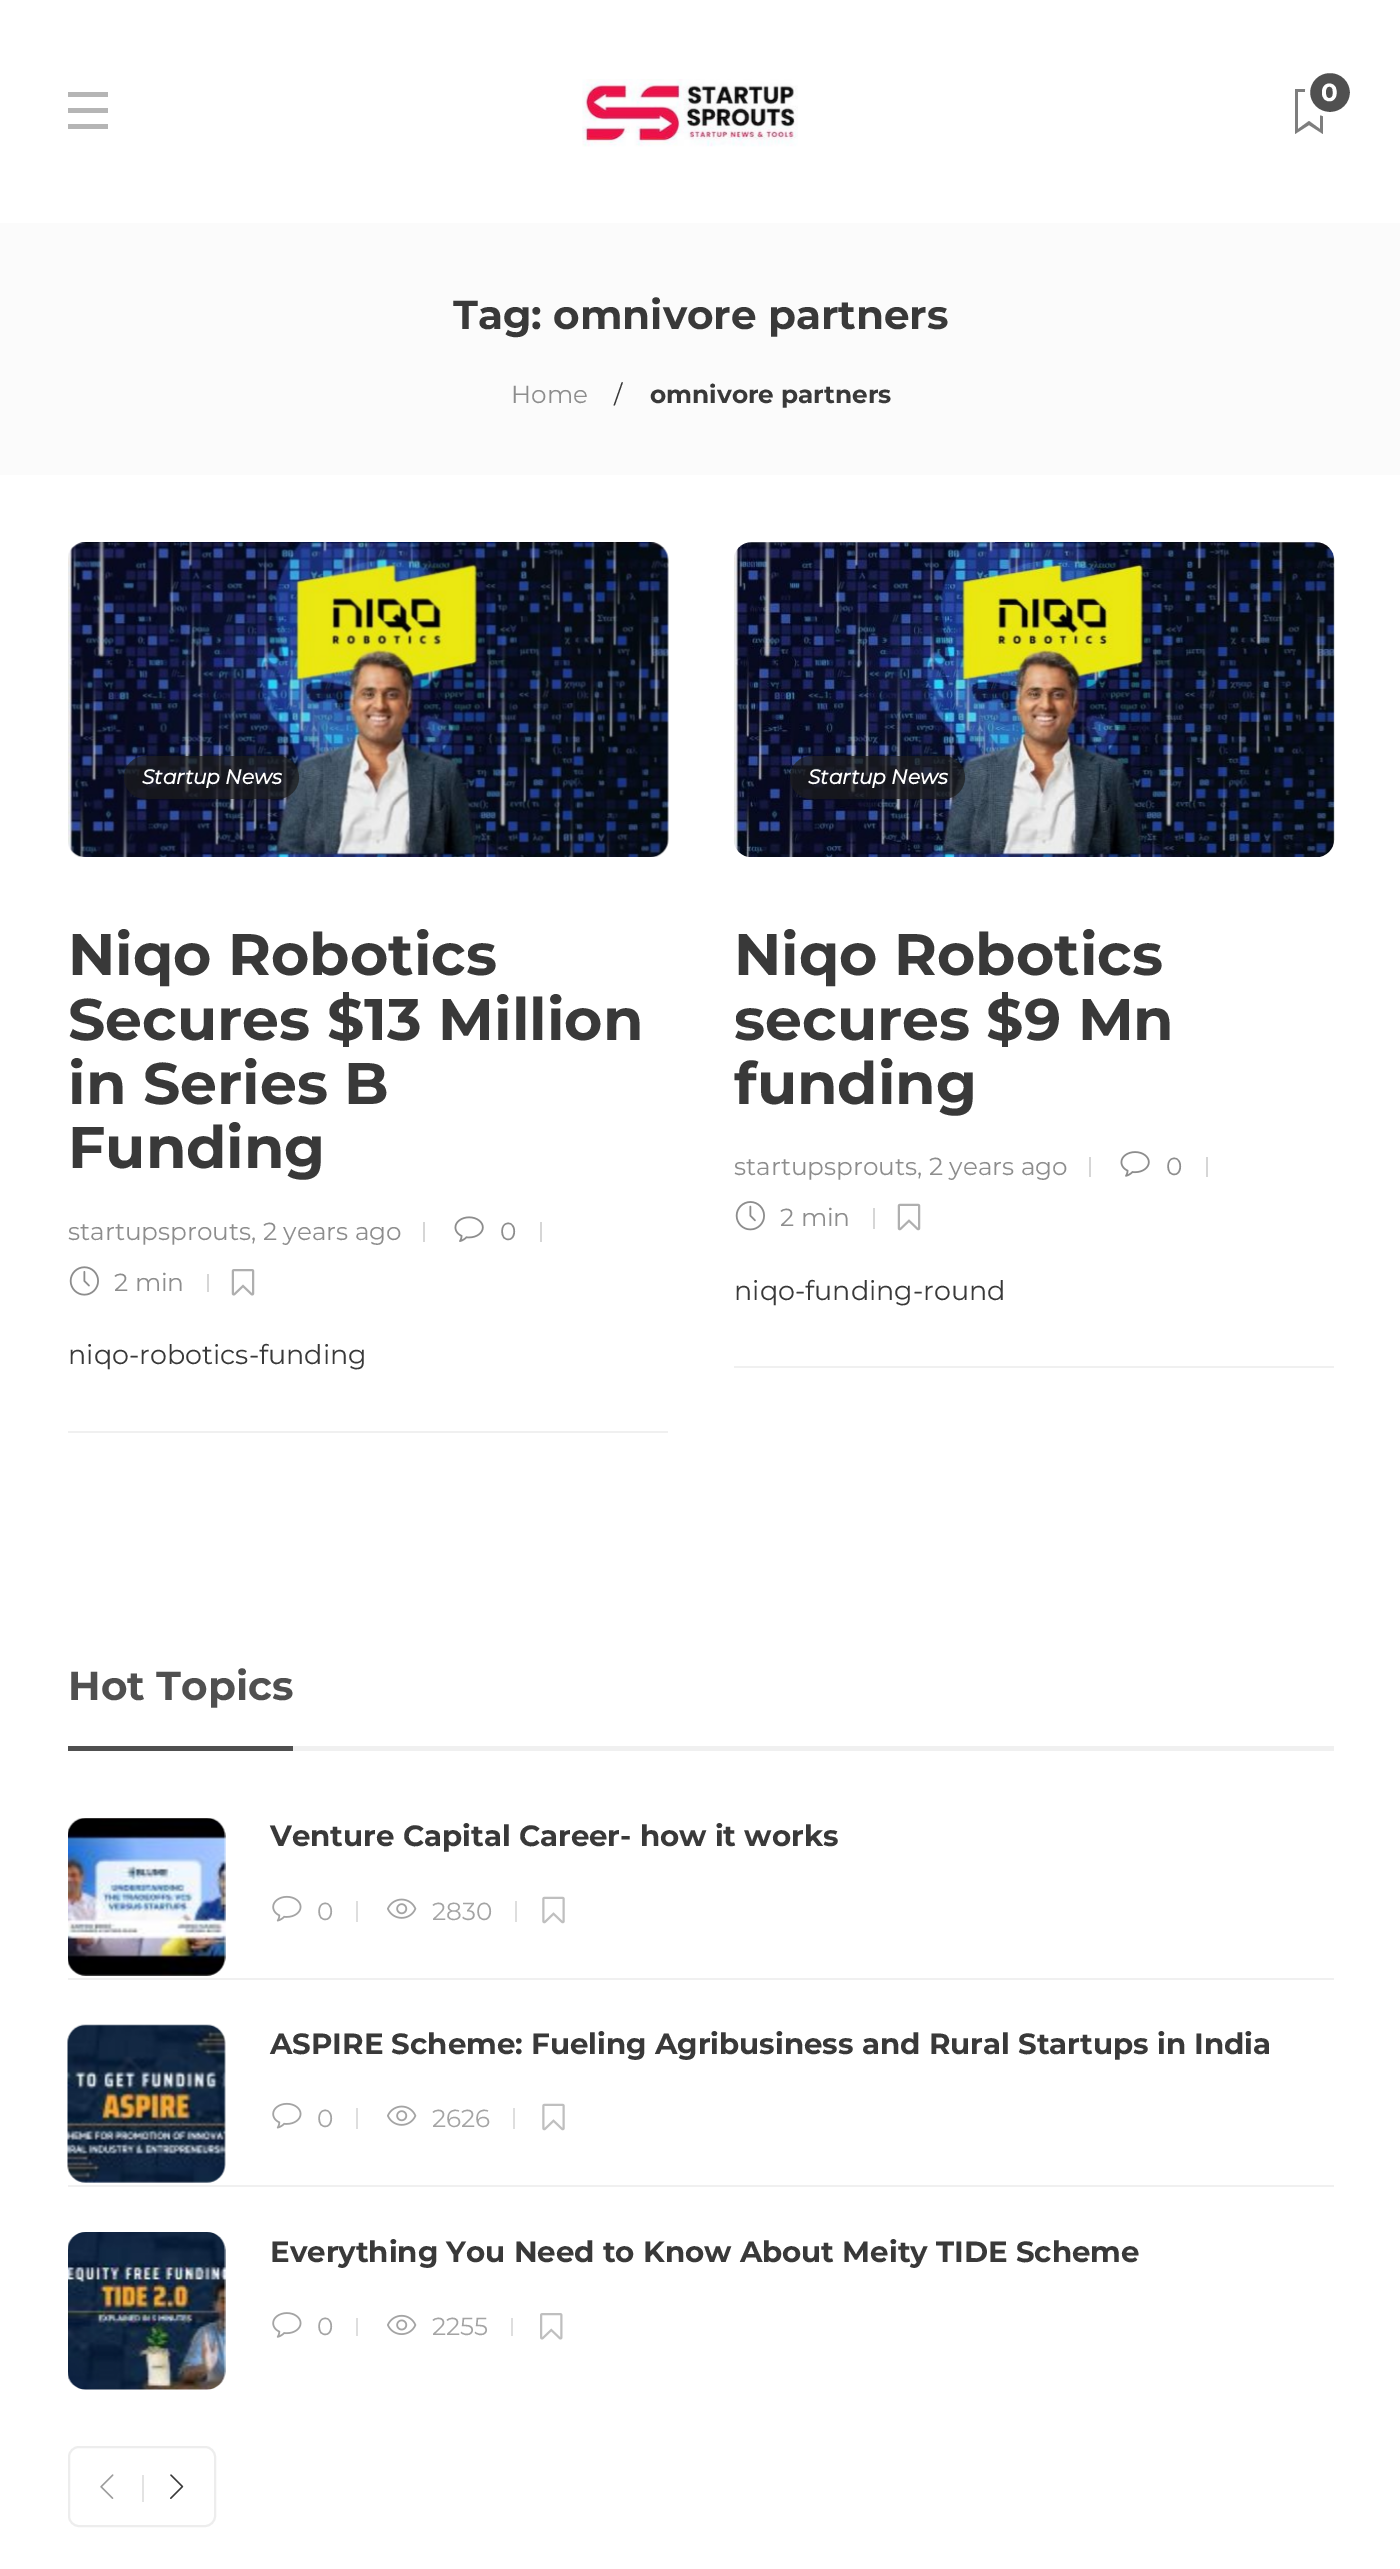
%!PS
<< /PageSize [1400 2569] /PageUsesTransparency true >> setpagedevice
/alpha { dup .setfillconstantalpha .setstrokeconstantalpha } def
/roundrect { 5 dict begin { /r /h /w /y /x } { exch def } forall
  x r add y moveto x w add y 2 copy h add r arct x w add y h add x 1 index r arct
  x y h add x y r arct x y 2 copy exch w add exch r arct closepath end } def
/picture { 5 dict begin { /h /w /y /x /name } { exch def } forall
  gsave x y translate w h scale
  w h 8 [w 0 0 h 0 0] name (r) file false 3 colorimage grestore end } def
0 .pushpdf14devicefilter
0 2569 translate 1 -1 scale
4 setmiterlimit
1 setgray
0 0 1400 2569 rectfill
0.71 setgray
68 92 40 5 rectfill
68 108 40 5 rectfill
68 124 40 5 rectfill
(img1.rgb) 582 79 216 68 picture
0.494 setgray
newpath 1295 89 moveto 1295 134 lineto 1309 125 lineto 1323 134 lineto 1323 89 lineto closepath 1320 129 moveto 1309 121 lineto 1298 129 lineto 1298 92 lineto 1320 92 lineto closepath fill
0.314 setgray
1307.5 70.5 45 44 22 roundrect gsave fill grestore
1 setgray
5 setlinewidth
stroke
/Montserrat-Bold [24.75 0 0 -24.75 0 0] selectfont
1321 101 moveto (0) show
0.984 setgray
0 223 1400 252 rectfill
/Montserrat-Bold [40.5 0 0 -40.5 0 0] selectfont
0.224 setgray
453 329 moveto (Tag: omnivore partners) show
/Montserrat-Thin [24.75 0 0 -24.75 0 0] selectfont
0.553 setgray
511 403 moveto (Home) show
0.224 setgray
614 403 moveto (/) show
/Montserrat-Bold [24.75 0 0 -24.75 0 0] selectfont
650 403 moveto (omnivore partners) show
0.941 setgray
68 1431 600 2 rectfill
(img2.rgb) 68 542 601 315 picture
0.7 alpha
0.11 setgray
124 756 175 43 21.5 roundrect fill
/Montserrat-BoldItalic [20.25 0 0 -20.25 0 0] selectfont
1 alpha
1 setgray
142 784 moveto (Startup News) show
/Montserrat-Bold [58.5 0 0 -58.5 0 0] selectfont
0.224 setgray
68 975 moveto (Niqo Robotics) show
68 1040 moveto (Secures $13 Million) show
68 1104 moveto (in Series B) show
68 1168 moveto (Funding) show
/Montserrat-Thin [24.75 0 0 -24.75 0 0] selectfont
0.553 setgray
68 1240 moveto (startupsprouts, 2 years ago) show
0.839 setgray
423 1222 2 20 rectfill
(img3.rgb) 454 1216 30 26 picture
0.553 setgray
500 1240 moveto (0) show
0.839 setgray
540 1222 2 20 rectfill
(img4.rgb) 69 1266 30 30 picture
0.553 setgray
114 1291 moveto (2 min) show
0.839 setgray
207 1274 2 18 rectfill
(img5.rgb) 231 1269 24 27 picture
/Montserrat-Thin [27 0 0 -27 0 0] selectfont
0.224 setgray
68 1364 moveto (niqo-robotics-funding) show
0.941 setgray
734 1366 600 2 rectfill
(img6.rgb) 734 542 601 315 picture
0.7 alpha
0.11 setgray
790 756 175 43 21.5 roundrect fill
/Montserrat-BoldItalic [20.25 0 0 -20.25 0 0] selectfont
1 alpha
1 setgray
808 784 moveto (Startup News) show
/Montserrat-Bold [58.5 0 0 -58.5 0 0] selectfont
0.224 setgray
734 975 moveto (Niqo Robotics) show
734 1040 moveto (secures $9 Mn) show
734 1104 moveto (funding) show
/Montserrat-Thin [24.75 0 0 -24.75 0 0] selectfont
0.553 setgray
734 1175 moveto (startupsprouts, 2 years ago) show
0.839 setgray
1089 1157 2 20 rectfill
(img7.rgb) 1120 1151 30 26 picture
0.553 setgray
1166 1175 moveto (0) show
0.839 setgray
1206 1157 2 20 rectfill
(img8.rgb) 735 1201 30 30 picture
0.553 setgray
780 1226 moveto (2 min) show
0.839 setgray
873 1208 2 21 rectfill
(img9.rgb) 897 1203 24 28 picture
/Montserrat-Thin [27 0 0 -27 0 0] selectfont
0.224 setgray
734 1300 moveto (niqo-funding-round) show
0.941 setgray
293 1746 1041 5 rectfill
0.314 setgray
68 1746 225 5 rectfill
/Montserrat-Bold [40.5 0 0 -40.5 0 0] selectfont
68 1700 moveto (Hot Topics) show
0.941 setgray
68 1978 1266 2 rectfill
(img10.rgb) 68 1818 158 158 picture
/Montserrat-Bold [29.25 0 0 -29.25 0 0] selectfont
0.224 setgray
270 1846 moveto (Venture Capital Career- how it works) show
(img11.rgb) 272 1895 30 27 picture
/Montserrat-Thin [24.75 0 0 -24.75 0 0] selectfont
0.643 setgray
317 1920 moveto (0) show
0.871 setgray
356 1901 2 21 rectfill
(img12.rgb) 387 1898 30 21 picture
0.643 setgray
432 1920 moveto (2830) show
0.871 setgray
515 1901 2 21 rectfill
(img13.rgb) 542 1896 23 28 picture
0.941 setgray
68 2185 1266 2 rectfill
(img14.rgb) 67 2024 159 159 picture
/Montserrat-Bold [29.25 0 0 -29.25 0 0] selectfont
0.224 setgray
270 2054 moveto (ASPIRE Scheme: Fueling Agribusiness and Rural Startups in India) show
(img11.rgb) 272 2102 30 27 picture
/Montserrat-Thin [24.75 0 0 -24.75 0 0] selectfont
0.643 setgray
317 2127 moveto (0) show
0.871 setgray
356 2108 2 21 rectfill
(img12.rgb) 387 2105 30 21 picture
0.643 setgray
432 2127 moveto (2626) show
0.871 setgray
513 2108 2 21 rectfill
(img13.rgb) 542 2103 23 28 picture
(img15.rgb) 68 2232 158 158 picture
/Montserrat-Bold [29.25 0 0 -29.25 0 0] selectfont
0.224 setgray
270 2262 moveto (Everything You Need to Know About Meity TIDE Scheme) show
(img16.rgb) 272 2312 30 26 picture
/Montserrat-Thin [24.75 0 0 -24.75 0 0] selectfont
0.643 setgray
317 2335 moveto (0) show
0.871 setgray
356 2318 2 18 rectfill
(img17.rgb) 387 2314 30 21 picture
0.643 setgray
432 2335 moveto (2255) show
0.871 setgray
511 2318 2 18 rectfill
(img18.rgb) 540 2313 23 27 picture
0.929 setgray
2 setlinewidth
69 2447 146 79 10 roundrect stroke
(img19.rgb) 100 2474 14 25 picture
0.89 setgray
142 2475 2 27 rectfill
(img20.rgb) 170 2474 14 25 picture
.poppdf14devicefilter showpage
